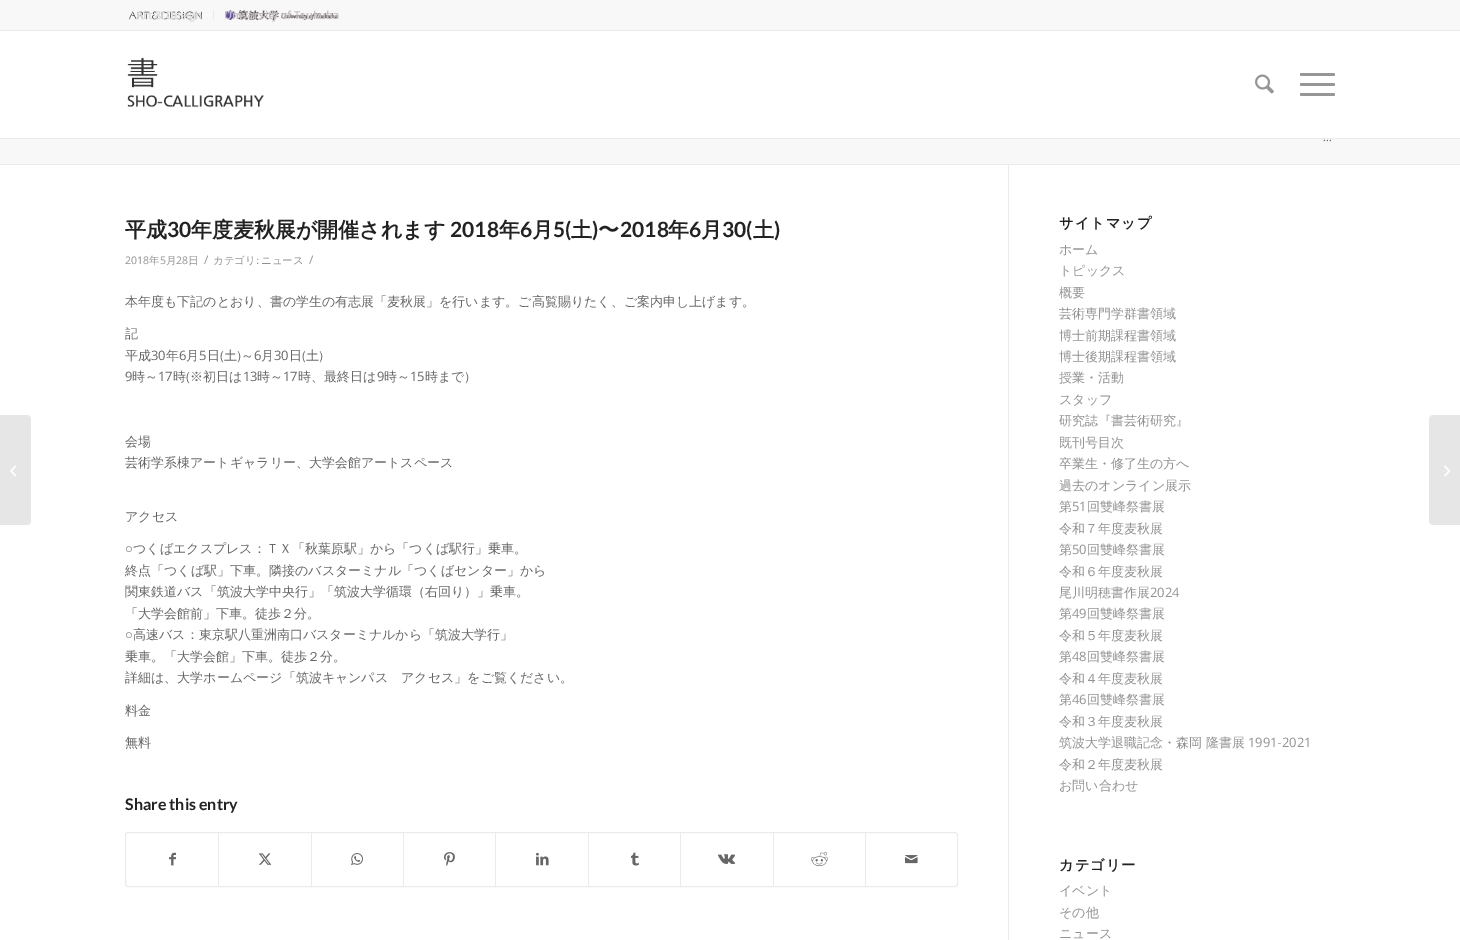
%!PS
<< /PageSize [1460 940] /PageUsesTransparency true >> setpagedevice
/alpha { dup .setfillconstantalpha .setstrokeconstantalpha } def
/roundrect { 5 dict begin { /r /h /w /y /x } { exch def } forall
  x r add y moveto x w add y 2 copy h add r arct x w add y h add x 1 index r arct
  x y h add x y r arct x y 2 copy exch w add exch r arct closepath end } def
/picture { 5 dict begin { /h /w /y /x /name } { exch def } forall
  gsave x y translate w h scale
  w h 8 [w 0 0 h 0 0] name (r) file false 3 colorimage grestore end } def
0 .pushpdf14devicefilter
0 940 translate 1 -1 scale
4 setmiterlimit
1 setgray
0 0 1460 940 rectfill
0.973 setgray
0 0 1460 30 rectfill
0.922 setgray
0 30 1460 1 rectfill
(img1.rgb) 129 11 73 9 picture
213 10 1 10 rectfill
/OpenSans-SemiBold [11 0 0 -11 0 0] selectfont
0.851 setgray
136 19 moveto (Art & Design) show
(img2.rgb) 225 10 113 10 picture
0.757 0.741 0.757 setrgbcolor
224 19 moveto (University of Tsukuba) show
0.973 setgray
0 108 1460 56 rectfill
0.922 setgray
0 138 1460 1 rectfill
(img3.rgb) 127 57 137 50 picture
(img4.rgb) 1255 74 19 20 picture
0.588 setgray
1300 83 35 3 1.5 roundrect fill
1300 73 35 3 1.5 roundrect fill
1300 93 35 3 1.5 roundrect fill
0.922 setgray
0 107 1460 1 rectfill
0.95 alpha
1 setgray
0 107 1460 31 rectfill
1 alpha
0.902 setgray
newpath 0 415 moveto 27 415 lineto 29 415 31 417 31 419 curveto 31 521 lineto 31 523 29 525 27 525 curveto 0 525 lineto closepath fill
(img5.rgb) 10 465 6 12 picture
/OpenSans-Regular [11 0 0 -11 0 0] selectfont
0.4 setgray
1323 141 moveto (...) show
0.922 setgray
0 164 1460 1 rectfill
1008 165 1 775 rectfill
/WenQuanYiZenHei-Bold [21 0 0 -21 0 0] selectfont
0.133 setgray
125 237 moveto (平成) show
191 237 moveto (年度麦秋展が開催されます) show
499 237 moveto (年) show
532 237 moveto (月) show
/Lato-Bold [21 0 0 -21 0 0] selectfont
553 237 moveto (5\() show
/WenQuanYiZenHei-Bold [21 0 0 -21 0 0] selectfont
571 237 moveto (土 〜) show
753 237 moveto (土) show
/Lato-Bold [21 0 0 -21 0 0] selectfont
167 237 moveto (30) show
450 237 moveto (2018) show
520 237 moveto (6) show
592 237 moveto (\)) show
620 237 moveto (2018) show
/WenQuanYiZenHei-Bold [21 0 0 -21 0 0] selectfont
668 237 moveto (年) show
/Lato-Bold [21 0 0 -21 0 0] selectfont
689 237 moveto (6) show
/WenQuanYiZenHei-Bold [21 0 0 -21 0 0] selectfont
701 237 moveto (月) show
/Lato-Bold [21 0 0 -21 0 0] selectfont
722 237 moveto (30\() show
774 237 moveto (\)) show
/OpenSans-Regular [10.5 0 0 -10.5 0 0] selectfont
0.569 setgray
125 264 moveto (2018) show
/WenQuanYiZenHei-Medium [10.5 0 0 -10.5 0 0] selectfont
149 264 moveto (年) show
/OpenSans-Regular [10.5 0 0 -10.5 0 0] selectfont
160 264 moveto (5) show
/WenQuanYiZenHei-Medium [10.5 0 0 -10.5 0 0] selectfont
166 264 moveto (月) show
/OpenSans-Regular [10.5 0 0 -10.5 0 0] selectfont
176 264 moveto (28) show
/WenQuanYiZenHei-Medium [10.5 0 0 -10.5 0 0] selectfont
188 264 moveto (日) show
/OpenSans-Regular [12 0 0 -12 0 0] selectfont
204 264 moveto (/) show
/WenQuanYiZenHei-Medium [10.5 0 0 -10.5 0 0] selectfont
213 264 moveto (カテゴリ:) show
261 264 moveto (ニュース) show
/OpenSans-Regular [12 0 0 -12 0 0] selectfont
309 264 moveto (/) show
/WenQuanYiZenHei-Medium [13 0 0 -13 0 0] selectfont
0.4 setgray
125 306 moveto (本年度も下記のとおり、書の学生の有志展「麦秋展」を行います。ご高覧賜りたく、ご案内申し上げます。) show
125 338 moveto (記) show
125 360 moveto (平成) show
/OpenSans-Regular [13 0 0 -13 0 0] selectfont
151 360 moveto (30) show
/WenQuanYiZenHei-Medium [13 0 0 -13 0 0] selectfont
166 360 moveto (年) show
/OpenSans-Regular [13 0 0 -13 0 0] selectfont
179 360 moveto (6) show
/WenQuanYiZenHei-Medium [13 0 0 -13 0 0] selectfont
186 360 moveto (月) show
/OpenSans-Regular [13 0 0 -13 0 0] selectfont
199 360 moveto (5) show
/WenQuanYiZenHei-Medium [13 0 0 -13 0 0] selectfont
207 360 moveto (日\(土\)～) show
/OpenSans-Regular [13 0 0 -13 0 0] selectfont
254 360 moveto (6) show
/WenQuanYiZenHei-Medium [13 0 0 -13 0 0] selectfont
261 360 moveto (月) show
/OpenSans-Regular [13 0 0 -13 0 0] selectfont
274 360 moveto (30) show
/WenQuanYiZenHei-Medium [13 0 0 -13 0 0] selectfont
289 360 moveto (日\(土\)) show
/OpenSans-Regular [13 0 0 -13 0 0] selectfont
125 381 moveto (9) show
/WenQuanYiZenHei-Medium [13 0 0 -13 0 0] selectfont
132 381 moveto (時～) show
/OpenSans-Regular [13 0 0 -13 0 0] selectfont
158 381 moveto (17) show
/WenQuanYiZenHei-Medium [13 0 0 -13 0 0] selectfont
173 381 moveto (時\(※初日は) show
/OpenSans-Regular [13 0 0 -13 0 0] selectfont
243 381 moveto (13) show
/WenQuanYiZenHei-Medium [13 0 0 -13 0 0] selectfont
257 381 moveto (時～) show
/OpenSans-Regular [13 0 0 -13 0 0] selectfont
283 381 moveto (17) show
/WenQuanYiZenHei-Medium [13 0 0 -13 0 0] selectfont
298 381 moveto (時、最終日は) show
/OpenSans-Regular [13 0 0 -13 0 0] selectfont
377 381 moveto (9) show
/WenQuanYiZenHei-Medium [13 0 0 -13 0 0] selectfont
384 381 moveto (時～) show
/OpenSans-Regular [13 0 0 -13 0 0] selectfont
410 381 moveto (15) show
/WenQuanYiZenHei-Medium [13 0 0 -13 0 0] selectfont
425 381 moveto (時まで\)) show
125 446 moveto (会場) show
125 467 moveto (芸術学系棟アートギャラリー、大学会館アートスペース) show
125 521 moveto (アクセス) show
/LiberationSans-Regular [13 0 0 -13 0 0] selectfont
125 553 moveto (○) show
/WenQuanYiZenHei-Medium [13 0 0 -13 0 0] selectfont
133 553 moveto (つくばエクスプレス：ＴＸ「秋葉原駅」から「つくば駅行」乗車。) show
125 575 moveto (終点「つくば駅」下車。隣接のバスターミナル「つくばセンター」から) show
125 596 moveto (関東鉄道バス「筑波大学中央行」「筑波大学循環（右回り）」乗車。) show
125 618 moveto (「大学会館前」下車。徒歩２分。) show
/LiberationSans-Regular [13 0 0 -13 0 0] selectfont
125 639 moveto (○) show
/WenQuanYiZenHei-Medium [13 0 0 -13 0 0] selectfont
133 639 moveto (高速バス：東京駅八重洲南口バスターミナルから「筑波大学行」) show
125 661 moveto (乗車。「大学会館」下車。徒歩２分。) show
125 682 moveto (詳細は、大学ホームページ「筑波キャンパス　アクセス」をご覧ください。) show
125 715 moveto (料金) show
125 747 moveto (無料) show
/Lato-Bold [16 0 0 -16 0 0] selectfont
0.133 setgray
125 810 moveto (Share this entry) show
0.922 setgray
125.5 832.5 832 54 2.5 roundrect stroke
(img6.rgb) 169 852 7 14 picture
218 833 1 53 rectfill
(img7.rgb) 258 853 14 12 picture
311 833 1 53 rectfill
(img8.rgb) 351 853 12 13 picture
403 833 1 53 rectfill
(img9.rgb) 444 852 11 14 picture
495 833 1 53 rectfill
(img10.rgb) 536 852 13 14 picture
588 833 1 53 rectfill
(img11.rgb) 631 852 8 14 picture
680 833 1 53 rectfill
(img12.rgb) 718 854 17 10 picture
773 833 1 53 rectfill
(img13.rgb) 811 852 17 15 picture
865 833 1 53 rectfill
(img14.rgb) 905 855 13 9 picture
/WenQuanYiZenHei-Bold [14.25 0 0 -14.25 0 0] selectfont
0.133 setgray
1059 228 moveto 1 0 (サイトマップ) ashow
/WenQuanYiZenHei-Medium [13 0 0 -13 0 0] selectfont
0.569 setgray
1059 254 moveto (ホーム) show
1059 275 moveto (トピックス) show
1059 297 moveto (概要) show
1059 318 moveto (芸術専門学群書領域) show
1059 340 moveto (博士前期課程書領域) show
1059 361 moveto (博士後期課程書領域) show
1059 382 moveto (授業・活動) show
1059 404 moveto (スタッフ) show
1059 425 moveto (研究誌『書芸術研究』) show
1059 447 moveto (既刊号目次) show
1059 468 moveto (卒業生・修了生の方へ) show
1059 490 moveto (過去のオンライン展示) show
1059 511 moveto (第) show
/OpenSans-Regular [13 0 0 -13 0 0] selectfont
1072 511 moveto (51) show
/WenQuanYiZenHei-Medium [13 0 0 -13 0 0] selectfont
1087 511 moveto (回雙峰祭書展) show
1059 533 moveto (令和７年度麦秋展) show
1059 554 moveto (第) show
/OpenSans-Regular [13 0 0 -13 0 0] selectfont
1072 554 moveto (50) show
/WenQuanYiZenHei-Medium [13 0 0 -13 0 0] selectfont
1087 554 moveto (回雙峰祭書展) show
1059 576 moveto (令和６年度麦秋展) show
1059 597 moveto (尾川明穂書作展) show
/OpenSans-Regular [13 0 0 -13 0 0] selectfont
1150 597 moveto (2024) show
/WenQuanYiZenHei-Medium [13 0 0 -13 0 0] selectfont
1059 618 moveto (第) show
/OpenSans-Regular [13 0 0 -13 0 0] selectfont
1072 618 moveto (49) show
/WenQuanYiZenHei-Medium [13 0 0 -13 0 0] selectfont
1087 618 moveto (回雙峰祭書展) show
1059 640 moveto (令和５年度麦秋展) show
1059 661 moveto (第) show
/OpenSans-Regular [13 0 0 -13 0 0] selectfont
1072 661 moveto (48) show
/WenQuanYiZenHei-Medium [13 0 0 -13 0 0] selectfont
1087 661 moveto (回雙峰祭書展) show
1059 683 moveto (令和４年度麦秋展) show
1059 704 moveto (第) show
/OpenSans-Regular [13 0 0 -13 0 0] selectfont
1072 704 moveto (46) show
/WenQuanYiZenHei-Medium [13 0 0 -13 0 0] selectfont
1087 704 moveto (回雙峰祭書展) show
1059 726 moveto (令和３年度麦秋展) show
1059 747 moveto (筑波大学退職記念・森岡 隆書展) show
/OpenSans-Regular [13 0 0 -13 0 0] selectfont
1248 747 moveto (1991) show
/WenQuanYiZenHei-Medium [13 0 0 -13 0 0] selectfont
1278 747 moveto (-) show
/OpenSans-Regular [13 0 0 -13 0 0] selectfont
1282 747 moveto (2021) show
/WenQuanYiZenHei-Medium [13 0 0 -13 0 0] selectfont
1059 769 moveto (令和２年度麦秋展) show
1059 790 moveto (お問い合わせ) show
/WenQuanYiZenHei-Bold [14.25 0 0 -14.25 0 0] selectfont
0.133 setgray
1059 870 moveto 1 0 (カテゴリー) ashow
/WenQuanYiZenHei-Medium [13 0 0 -13 0 0] selectfont
0.569 setgray
1059 895 moveto (イベント) show
1059 917 moveto (その他) show
1059 938 moveto (ニュース) show
0.902 setgray
newpath 1433 415 moveto 1460 415 lineto 1460 525 lineto 1433 525 lineto 1431 525 1429 523 1429 521 curveto 1429 419 lineto 1429 417 1431 415 1433 415 curveto closepath fill
(img15.rgb) 1444 465 6 12 picture
.poppdf14devicefilter showpage
